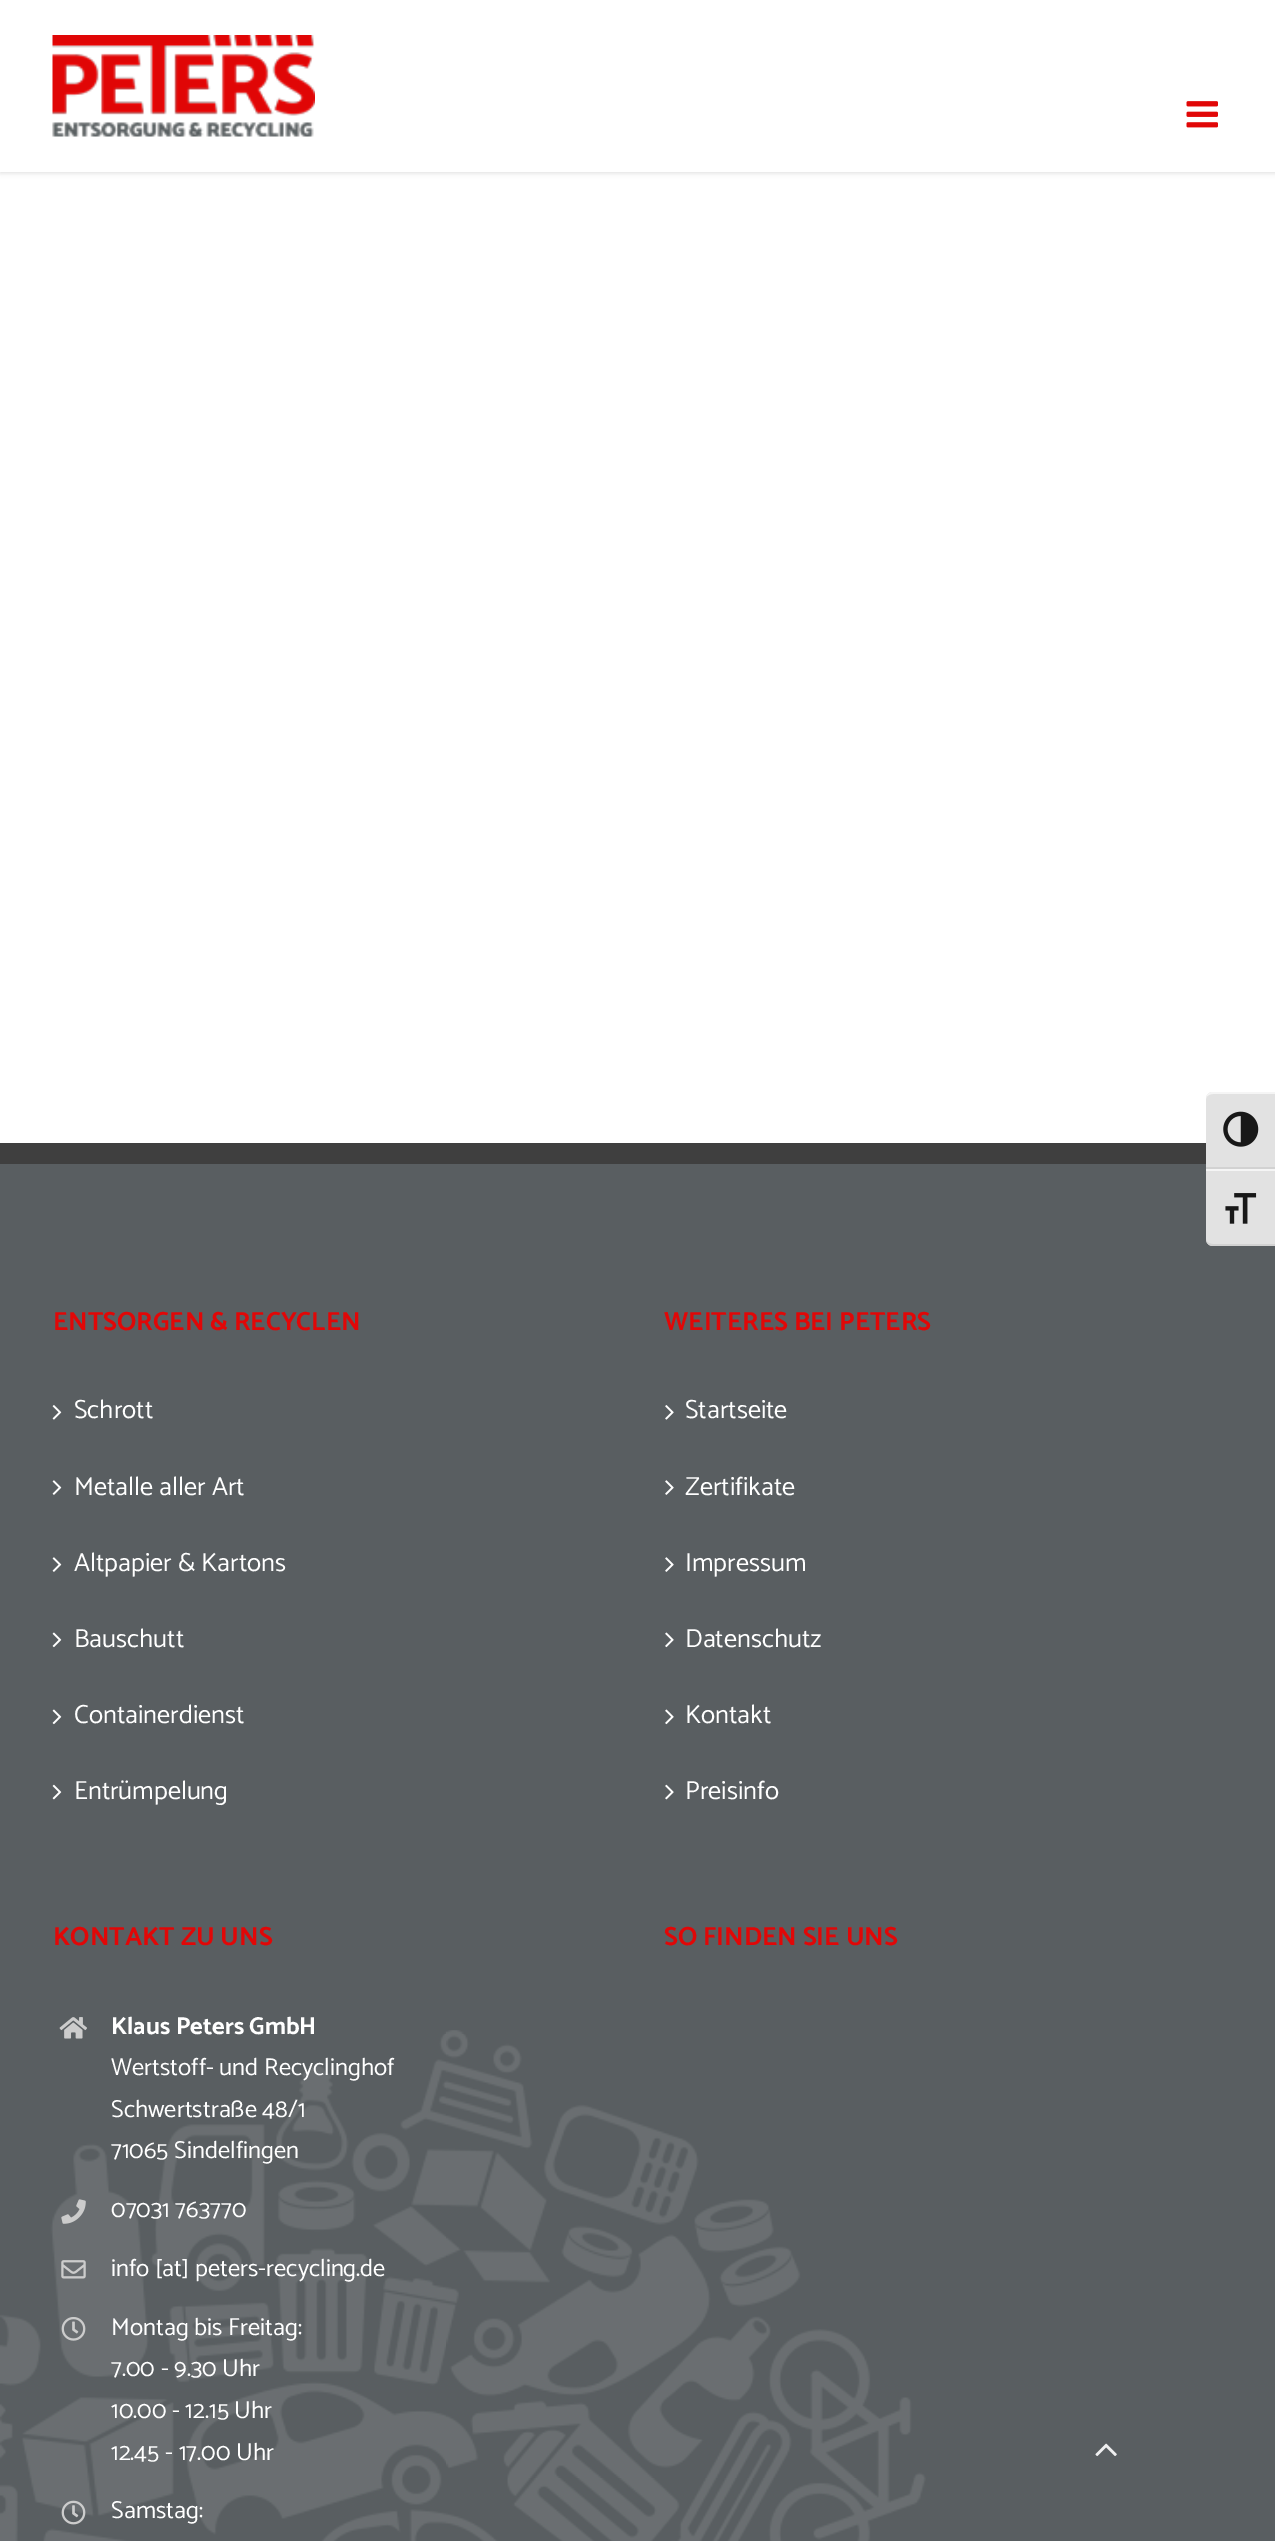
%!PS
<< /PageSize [1275 2541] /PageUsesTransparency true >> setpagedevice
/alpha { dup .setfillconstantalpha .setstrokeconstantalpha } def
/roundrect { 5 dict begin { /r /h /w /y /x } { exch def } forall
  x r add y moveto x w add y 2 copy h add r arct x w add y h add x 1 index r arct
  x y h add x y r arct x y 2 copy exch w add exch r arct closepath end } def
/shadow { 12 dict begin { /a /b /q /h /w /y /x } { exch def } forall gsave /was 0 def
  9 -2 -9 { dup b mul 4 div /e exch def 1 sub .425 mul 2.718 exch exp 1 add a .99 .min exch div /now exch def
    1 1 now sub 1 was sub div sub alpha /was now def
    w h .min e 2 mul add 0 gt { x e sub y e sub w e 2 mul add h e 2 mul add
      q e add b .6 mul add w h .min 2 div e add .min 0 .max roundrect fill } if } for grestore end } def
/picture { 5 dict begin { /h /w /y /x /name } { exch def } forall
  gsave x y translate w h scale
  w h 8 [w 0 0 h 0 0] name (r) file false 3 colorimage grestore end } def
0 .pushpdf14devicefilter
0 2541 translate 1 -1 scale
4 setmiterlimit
1 setgray
0 0 1275 2541 rectfill
0.349 0.369 0.38 setrgbcolor
0 1164 1275 1377 rectfill
0.886 setgray
newpath 1213 1092 moveto 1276 1092 lineto 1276 1169 lineto 1206 1169 lineto 1206 1099 lineto 1206 1095 1209 1092 1213 1092 curveto closepath fill
0.961 setgray
newpath 1213 1092 moveto 1209 1092 1206 1095 1206 1099 curveto 1206 1096 1209 1094 1213 1094 curveto 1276 1094 lineto 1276 1092 lineto closepath fill
0.824 setgray
1206 1167 69 2 rectfill
(img1.rgb) 1223 1111 36 36 picture
0.886 setgray
newpath 1206 1169 moveto 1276 1169 lineto 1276 1246 lineto 1213 1246 lineto 1209 1246 1206 1243 1206 1239 curveto closepath fill
0.961 setgray
1206 1169 69 2 rectfill
0.824 setgray
newpath 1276 1246 moveto 1213 1246 lineto 1209 1246 1206 1243 1206 1239 curveto 1206 1242 1209 1244 1213 1244 curveto 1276 1244 lineto closepath fill
(img2.rgb) 1225 1193 32 31 picture
0 setgray
0 2 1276 171 0 2.5 0.12 shadow
1 setgray
0 0 1275 172 rectfill
(img3.rgb) 52 35 263 102 picture
(img4.rgb) 1186 101 32 27 picture
(img5.rgb) 0 2030 926 511 picture
0.247 setgray
0 1143 1206 21 rectfill
/Catamaran-Bold [26.25 0 0 -26.25 0 0] selectfont
0.882 0.027 0.027 setrgbcolor
53 1330 moveto (ENTSORGEN & RECYCLEN) show
(img6.rgb) 52 1405 10 15 picture
/Catamaran-Regular [26.25 0 0 -26.25 0 0] selectfont
1 setgray
74 1418 moveto (Schrott) show
(img7.rgb) 52 1480 10 15 picture
74 1495 moveto (Metalle aller Art) show
(img7.rgb) 52 1557 10 15 picture
74 1571 moveto (Altpapier & Kartons) show
(img8.rgb) 52 1632 10 16 picture
74 1647 moveto (Bauschutt) show
(img8.rgb) 52 1709 10 16 picture
74 1723 moveto (Containerdienst) show
(img9.rgb) 52 1784 10 16 picture
74 1799 moveto (Entrümpelung) show
/Catamaran-Bold [26.25 0 0 -26.25 0 0] selectfont
0.882 0.027 0.027 setrgbcolor
664 1330 moveto (WEITERES BEI PETERS) show
(img10.rgb) 665 1405 9 15 picture
/Catamaran-Regular [26.25 0 0 -26.25 0 0] selectfont
1 setgray
685 1418 moveto (Startseite) show
(img11.rgb) 665 1480 9 15 picture
685 1495 moveto (Zertifikate) show
(img11.rgb) 665 1557 9 15 picture
685 1571 moveto (Impressum) show
(img12.rgb) 665 1632 9 16 picture
685 1647 moveto (Datenschutz) show
(img12.rgb) 665 1709 9 16 picture
685 1723 moveto (Kontakt) show
(img13.rgb) 665 1784 9 16 picture
685 1799 moveto (Preisinfo) show
/Catamaran-Bold [26.25 0 0 -26.25 0 0] selectfont
0.882 0.027 0.027 setrgbcolor
53 1945 moveto (KONTAKT ZU UNS) show
(img14.rgb) 59 2017 28 22 picture
/Catamaran-Bold [24.5 0 0 -24.5 0 0] selectfont
1 setgray
111 2034 moveto (Klaus Peters GmbH) show
/Catamaran-Regular [24.5 0 0 -24.5 0 0] selectfont
111 2075 moveto (Wertstoff- und Recyclinghof) show
111 2117 moveto (Schwertstraße 48/1) show
111 2158 moveto (71065 Sindelfingen) show
(img15.rgb) 61 2199 25 25 picture
111 2217 moveto (07031 763770) show
(img16.rgb) 61 2260 25 19 picture
111 2276 moveto (info [at] peters-recycling.de) show
(img17.rgb) 61 2317 25 24 picture
111 2335 moveto (Montag bis Freitag:) show
111 2376 moveto (7.00 - 9.30 Uhr) show
111 2418 moveto (10.00 - 12.15 Uhr) show
111 2460 moveto (12.45 - 17.00 Uhr) show
(img18.rgb) 61 2500 25 25 picture
111 2518 moveto (Samstag:) show
/Catamaran-Bold [26.25 0 0 -26.25 0 0] selectfont
0.882 0.027 0.027 setrgbcolor
664 1945 moveto (SO FINDEN SIE UNS) show
(img19.rgb) 1095 2443 22 14 picture
.poppdf14devicefilter showpage
